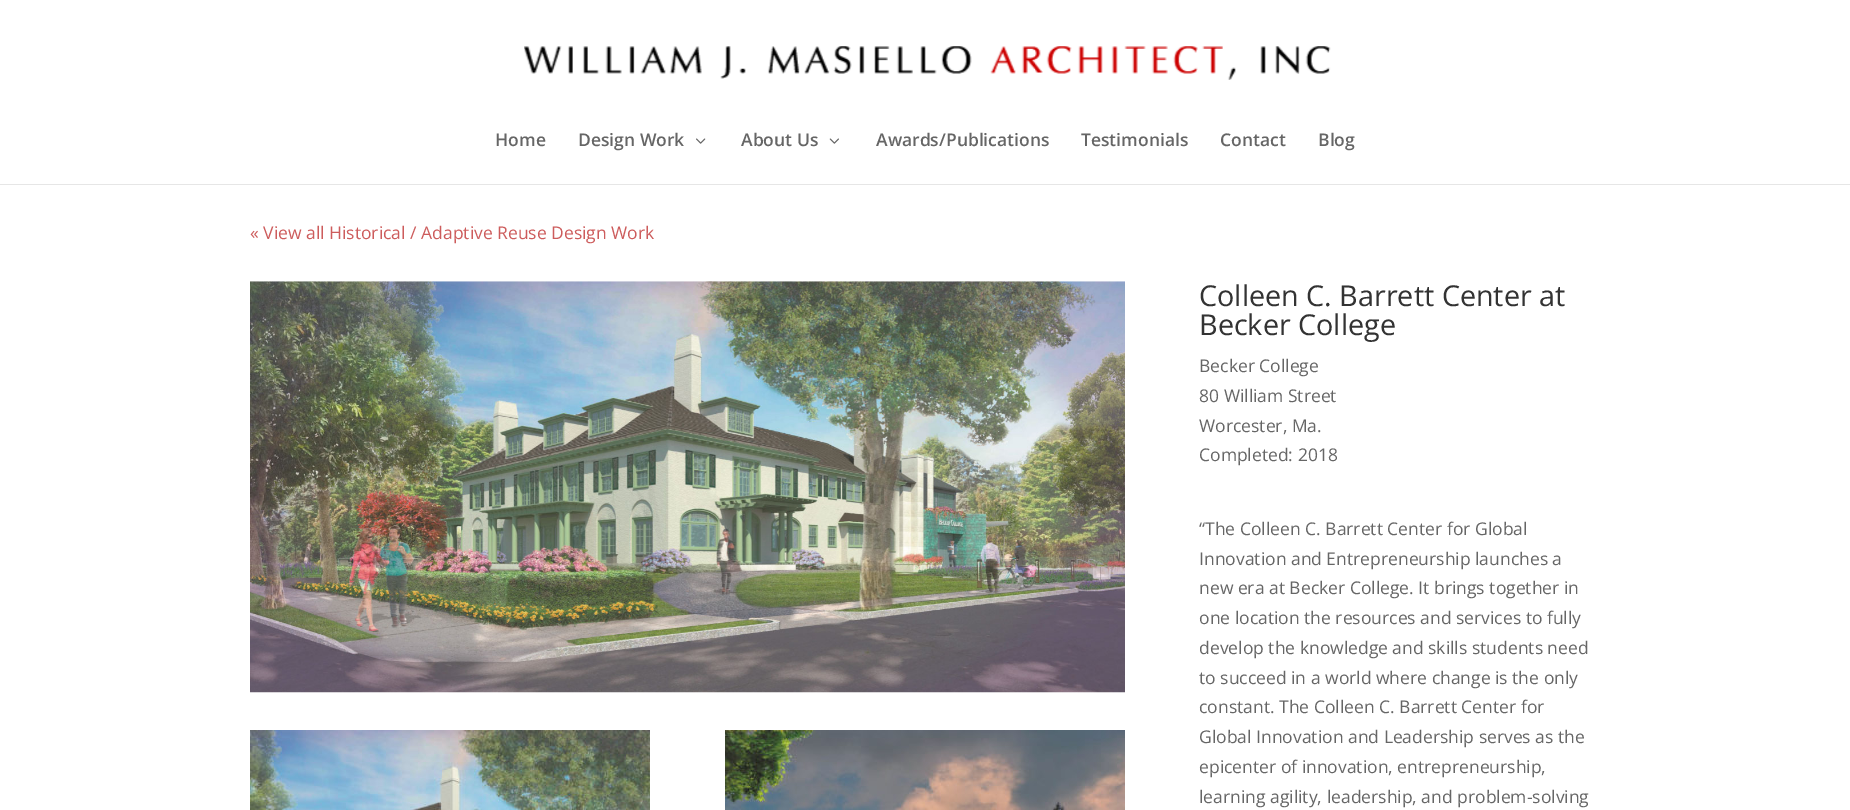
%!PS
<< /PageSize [1850 810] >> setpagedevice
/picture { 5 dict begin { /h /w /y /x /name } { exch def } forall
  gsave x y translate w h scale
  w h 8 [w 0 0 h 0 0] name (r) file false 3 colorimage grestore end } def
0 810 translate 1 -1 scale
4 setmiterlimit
1 setgray
0 0 1850 810 rectfill
0.902 setgray
0 184 1850 1 rectfill
(img1.rgb) 524 46 807 34 picture
/OpenSans-SemiBold [17.5 0 0 -17.5 0 0] selectfont
0.4 setgray
495 146 moveto (Home) show
578 146 moveto (Design Work) show
(img2.rgb) 696 138 10 6 picture
741 146 moveto (About Us) show
(img3.rgb) 829 138 10 6 picture
876 146 moveto (Awards/Publications) show
1081 146 moveto (Testimonials) show
1220 146 moveto (Contact) show
1318 146 moveto (Blog) show
/OpenSans-Regular [17.5 0 0 -17.5 0 0] selectfont
0.804 0.361 0.361 setrgbcolor
250 239 moveto (« View all Historical / Adaptive Reuse Design Work) show
(img4.rgb) 250 281 875 412 picture
(img5.rgb) 250 730 400 80 picture
(img6.rgb) 725 730 400 80 picture
/OpenSans-Regular [28.75 0 0 -28.75 0 0] selectfont
0.2 setgray
1199 306 moveto (Colleen C. Barrett Center at) show
1199 335 moveto (Becker College) show
/OpenSans-Regular [17.5 0 0 -17.5 0 0] selectfont
0.4 setgray
1199 372 moveto (Becker College) show
1199 402 moveto (80 William Street) show
1199 432 moveto (Worcester, Ma.) show
1199 461 moveto (Completed: 2018) show
1199 535 moveto (“The Colleen C. Barrett Center for Global) show
1199 565 moveto (Innovation and Entrepreneurship launches a) show
1199 594 moveto (new era at Becker College. It brings together in) show
1199 624 moveto (one location the resources and services to fully) show
1199 654 moveto (develop the knowledge and skills students need) show
1199 684 moveto (to succeed in a world where change is the only) show
1199 713 moveto (constant. The Colleen C. Barrett Center for) show
1199 743 moveto (Global Innovation and Leadership serves as the) show
1199 773 moveto (epicenter of innovation, entrepreneurship,) show
1199 803 moveto (learning agility, leadership, and problem-solving) show
showpage
